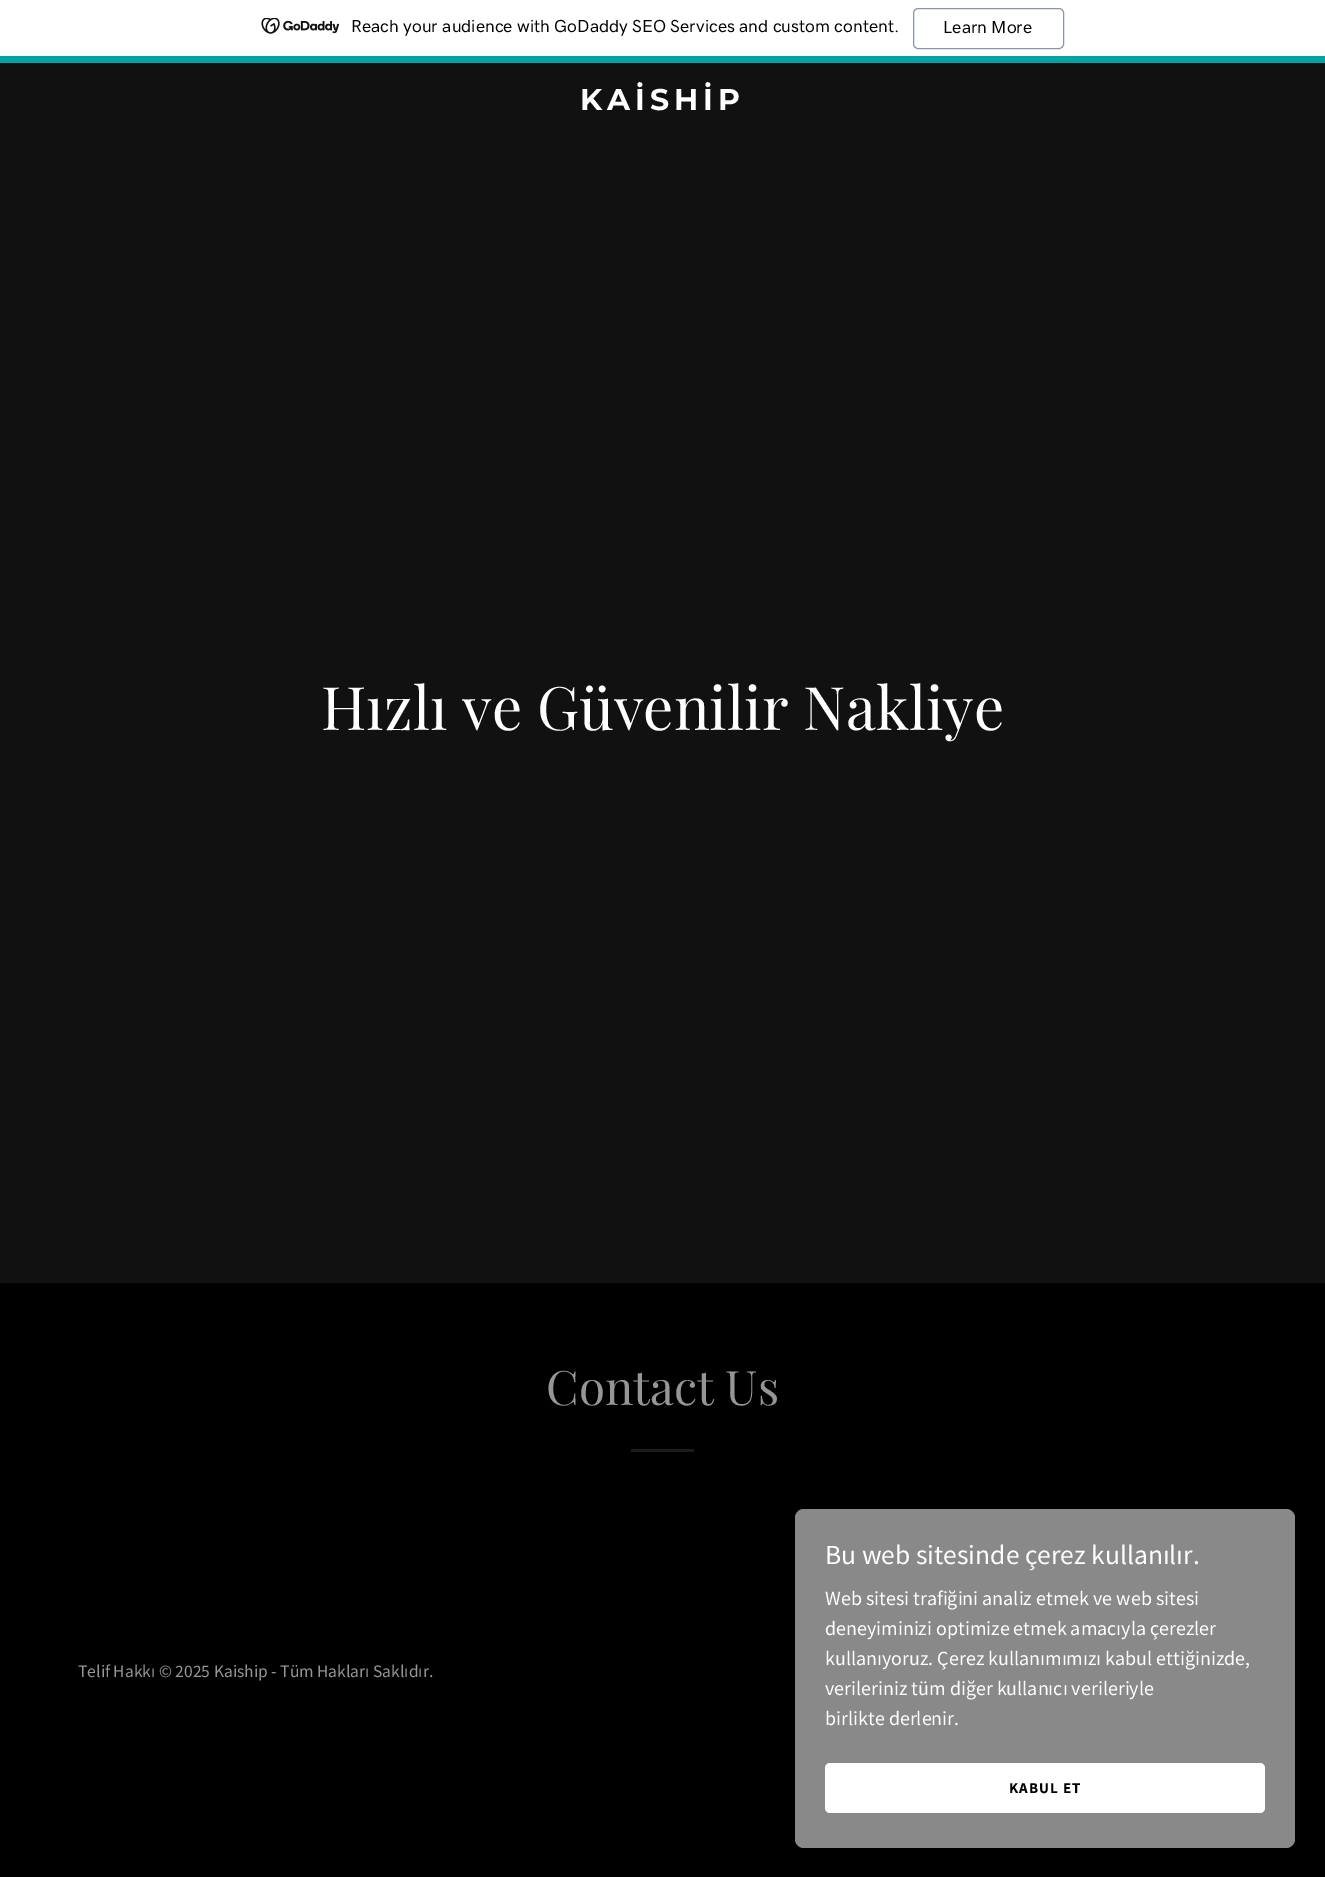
%!PS
<< /PageSize [1325 1877] >> setpagedevice
/roundrect { 5 dict begin { /r /h /w /y /x } { exch def } forall
  x r add y moveto x w add y 2 copy h add r arct x w add y h add x 1 index r arct
  x y h add x y r arct x y 2 copy exch w add exch r arct closepath end } def
/picture { 5 dict begin { /h /w /y /x /name } { exch def } forall
  gsave x y translate w h scale
  w h 8 [w 0 0 h 0 0] name (r) file false 3 colorimage grestore end } def
0 1877 translate 1 -1 scale
4 setmiterlimit
0 setgray
0 0 1325 1877 rectfill
1 setgray
0 0 1325 56 rectfill
0 0.643 0.651 setrgbcolor
0 56 1325 7 rectfill
(img1.rgb) 261 18 79 16 picture
/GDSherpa-Medium [17.5 0 0 -17.5 0 0] selectfont
0 setgray
351 32 moveto (Reach your audience with GoDaddy SEO Services and custom content.) show
0.537 0.584 0.663 setrgbcolor
913.5 8.5 150 40 4.5 roundrect stroke
0 setgray
943 33 moveto (Learn More) show
0.067 setgray
0 63 1325 1220 rectfill
/Montserrat-Bold [30 0 0 -30 0 0] selectfont
1 setgray
580 110 moveto 5 0 (KAİSHİP) ashow
/PlayfairDisplay-Regular [60 0 0 -60 0 0] selectfont
321 730 moveto (Hızlı ve Güvenilir Nakliye) show
/PlayfairDisplay-Regular [47.5 0 0 -47.5 0 0] selectfont
0.588 setgray
546 1405 moveto (Contact Us) show
0.106 setgray
631 1449 63 3 rectfill
/SourceSansPro-Regular [17.5 0 0 -17.5 0 0] selectfont
0.588 setgray
78 1677 moveto (Telif Hakkı © 2025 Kaiship - Tüm Hakları Saklıdır.) show
0.537 setgray
795 1509 500 339 9 roundrect fill
/SourceSansPro-Regular [27.5 0 0 -27.5 0 0] selectfont
1 setgray
825 1564 moveto (Bu web sitesinde çerez kullanılır.) show
/SourceSansPro-Regular [20 0 0 -20 0 0] selectfont
825 1605 moveto (Web sitesi trafiğini analiz etmek ve web sitesi) show
825 1635 moveto (deneyiminizi optimize etmek amacıyla çerezler) show
825 1665 moveto (kullanıyoruz. Çerez kullanımımızı kabul ettiğinizde,) show
825 1695 moveto (verileriniz tüm diğer kullanıcı verileriyle) show
825 1725 moveto (birlikte derlenir.) show
825 1763 440 50 5 roundrect fill
/SourceSansPro-Bold [15 0 0 -15 0 0] selectfont
0 setgray
1009 1793 moveto 1 0 (KABUL ET) ashow
showpage
